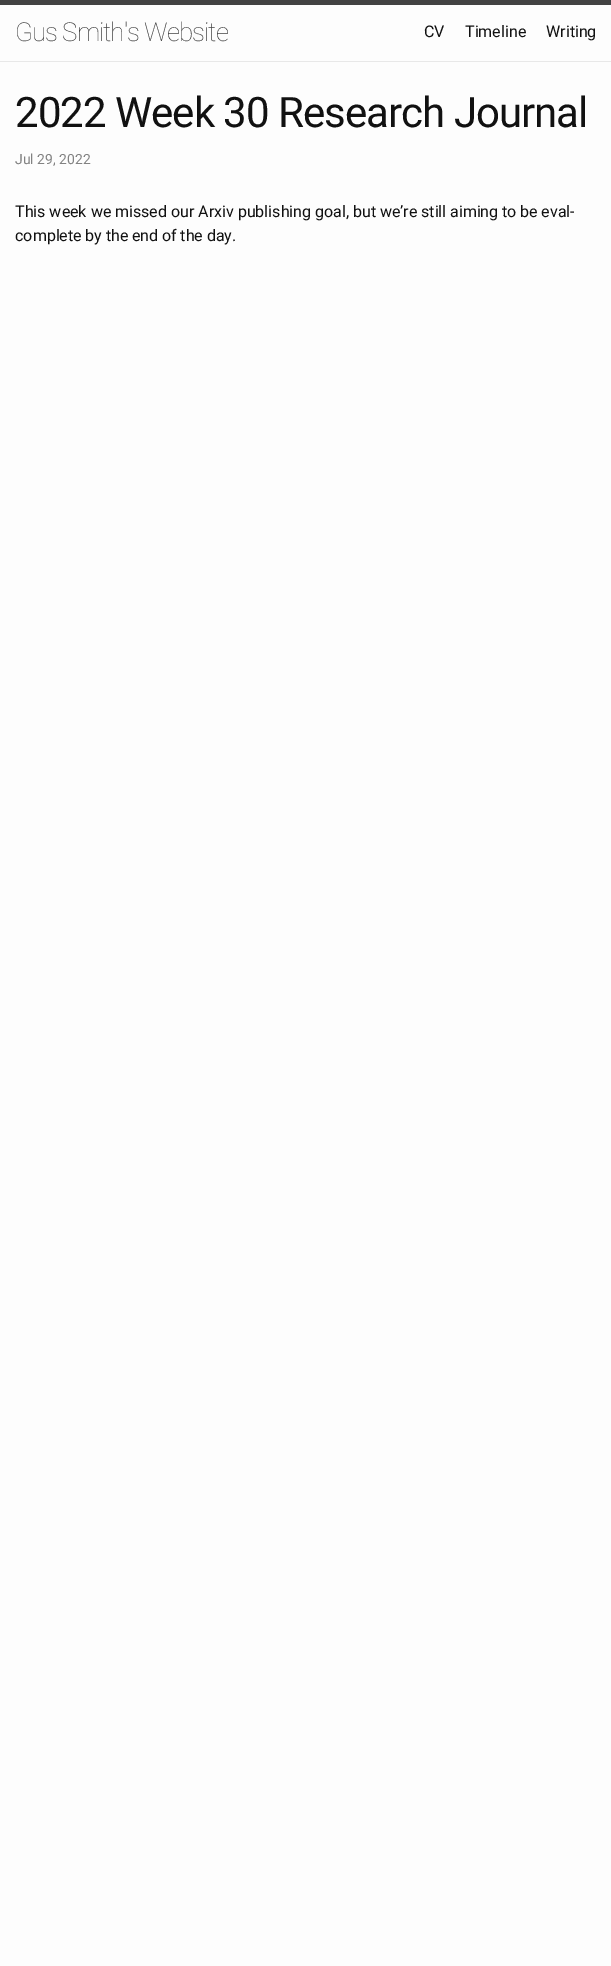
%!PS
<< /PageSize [611 1966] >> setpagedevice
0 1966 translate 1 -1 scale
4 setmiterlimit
0.992 setgray
0 0 611 1966 rectfill
0.259 setgray
0 0 611 5 rectfill
0.91 setgray
0 61 611 1 rectfill
/Roboto-Thin [26 0 0 -26 0 0] selectfont
0.259 setgray
15 41 moveto -1 0 (Gus Smith's Website) ashow
/Roboto-Regular [16 0 0 -16 0 0] selectfont
0.067 setgray
424 37 moveto (CV) show
465 37 moveto (Timeline) show
546 37 moveto (Writing) show
/Roboto-Regular [42 0 0 -42 0 0] selectfont
15 127 moveto -1 0 (2022 Week 30 Research Journal) ashow
/Roboto-Regular [14 0 0 -14 0 0] selectfont
0.51 setgray
15 164 moveto (Jul 29, 2022) show
/Roboto-Regular [16 0 0 -16 0 0] selectfont
0.067 setgray
15 217 moveto (This week we missed our Arxiv publishing goal,) show
353 217 moveto -0.25 0 32 (but we’re still aiming to be eval-) widthshow
15 241 moveto -0.25 0 32 (complete by the end of the day.) widthshow
showpage
